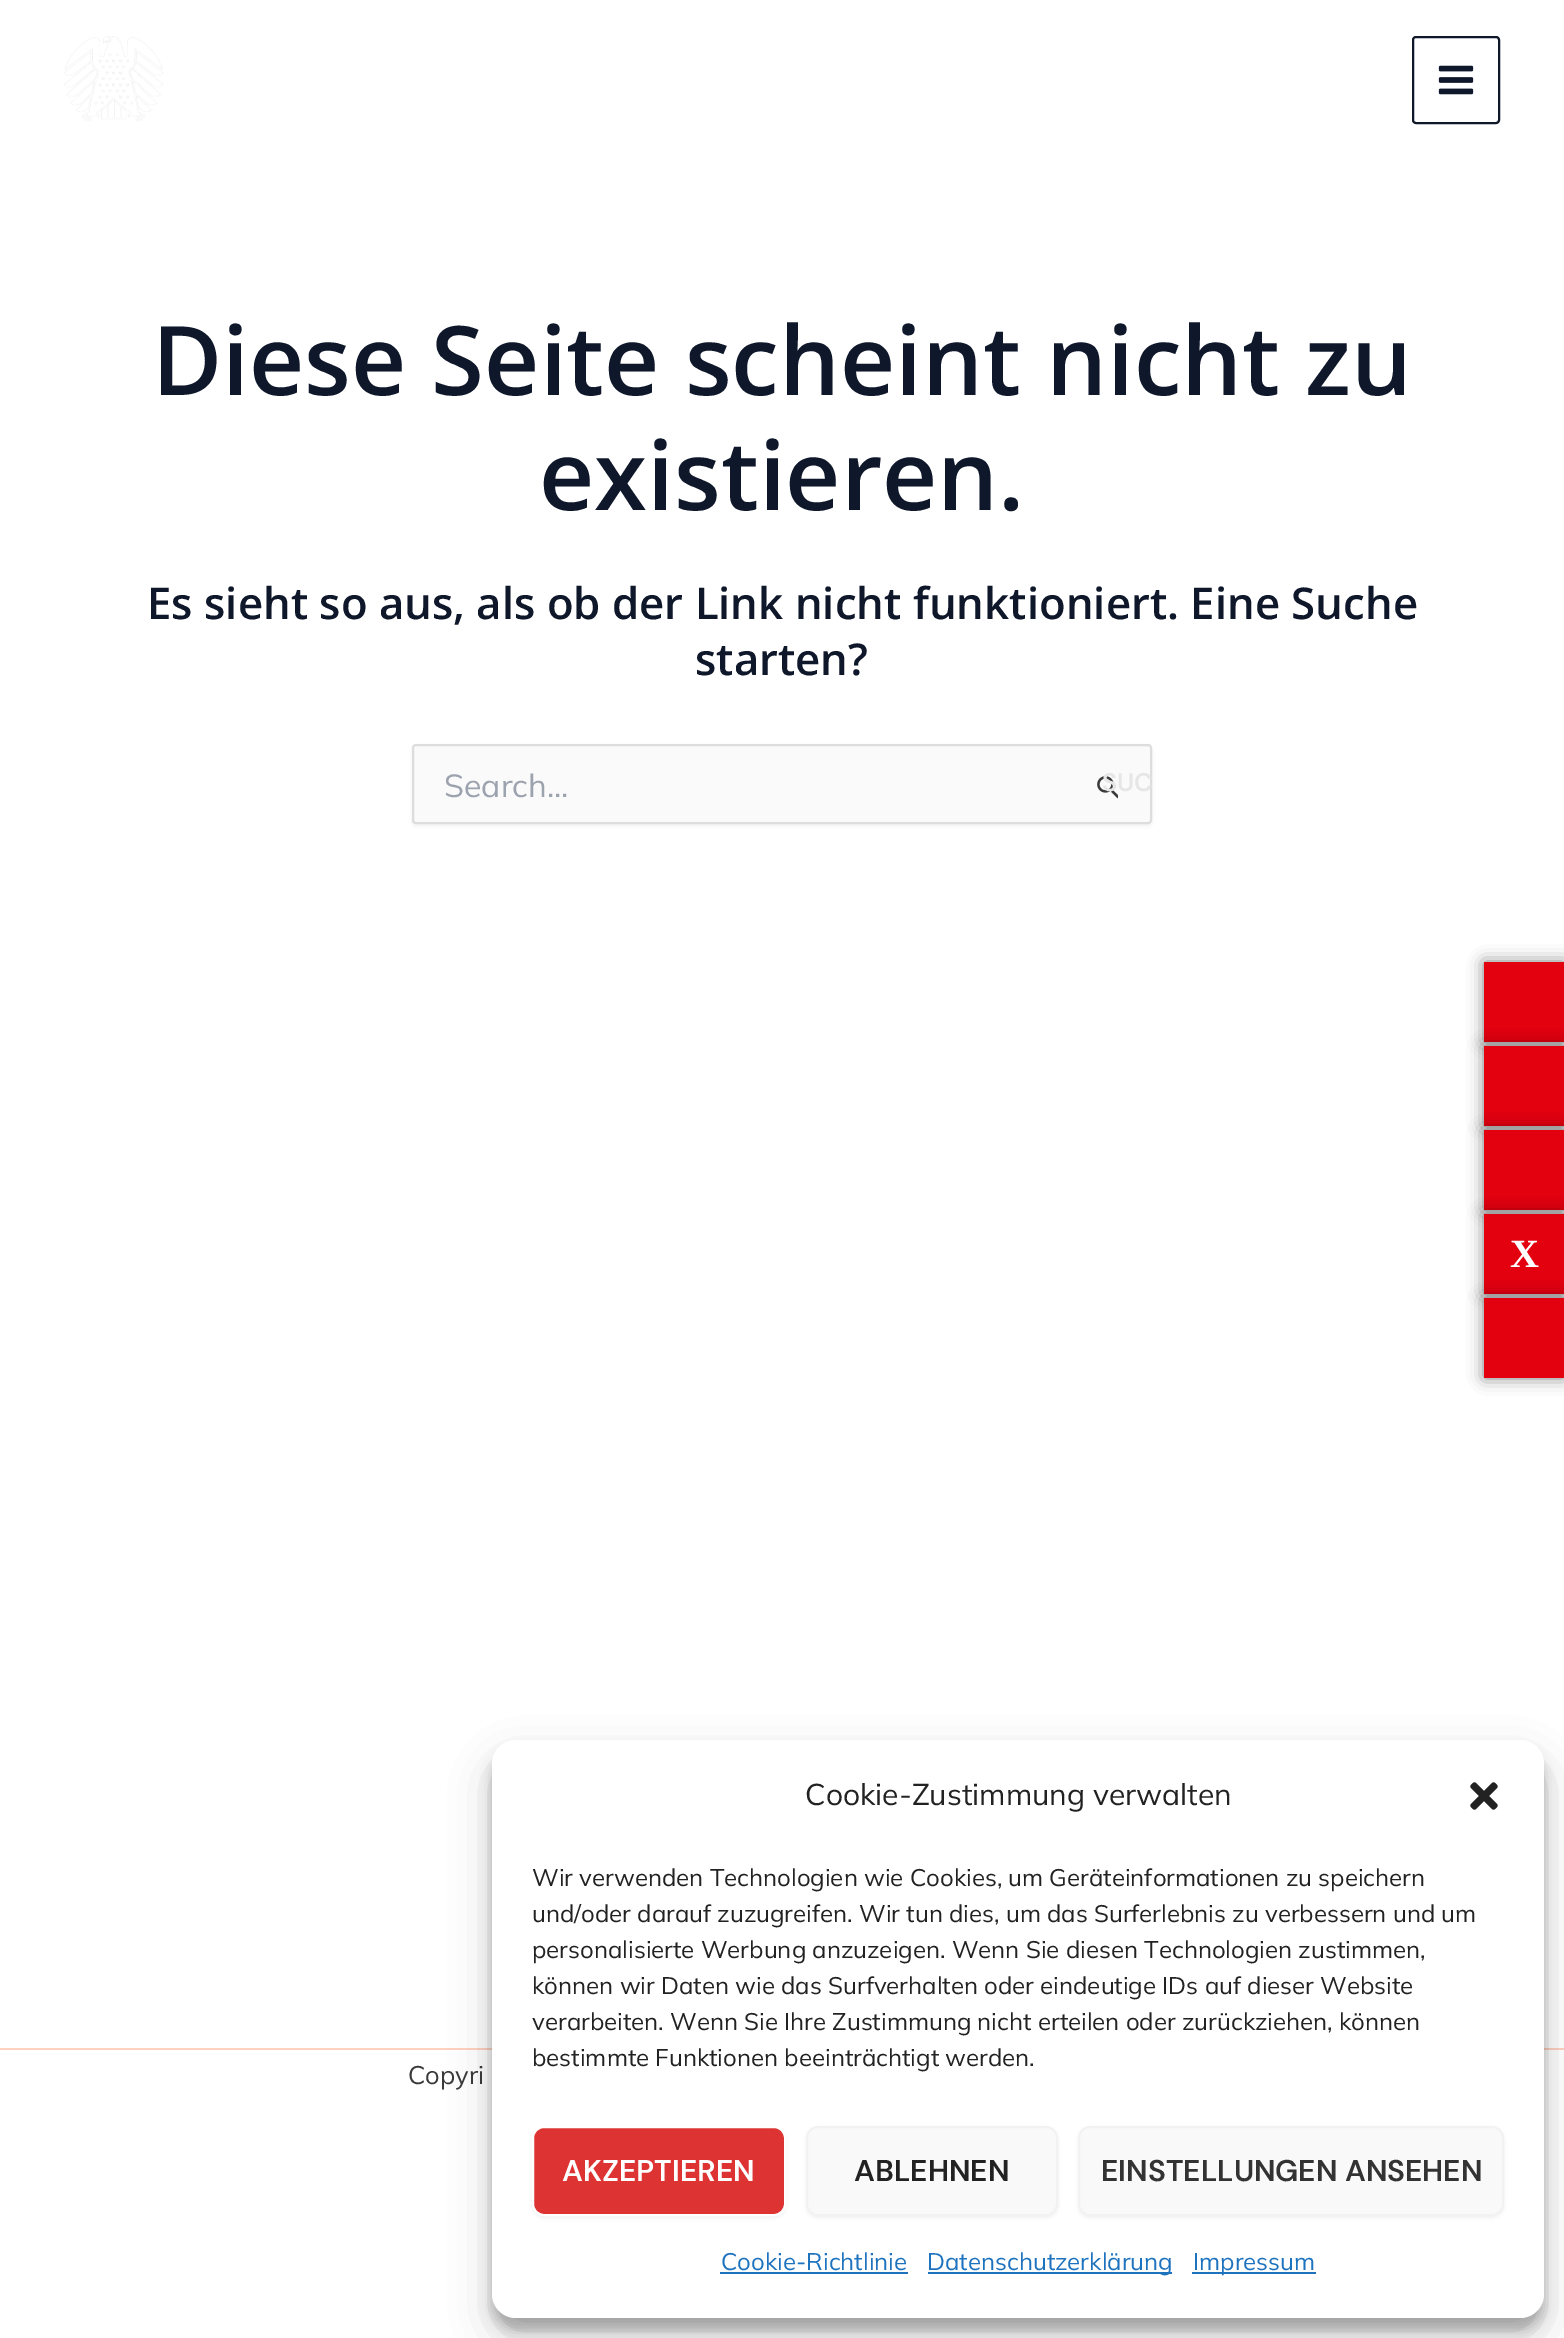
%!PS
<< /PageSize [1564 2338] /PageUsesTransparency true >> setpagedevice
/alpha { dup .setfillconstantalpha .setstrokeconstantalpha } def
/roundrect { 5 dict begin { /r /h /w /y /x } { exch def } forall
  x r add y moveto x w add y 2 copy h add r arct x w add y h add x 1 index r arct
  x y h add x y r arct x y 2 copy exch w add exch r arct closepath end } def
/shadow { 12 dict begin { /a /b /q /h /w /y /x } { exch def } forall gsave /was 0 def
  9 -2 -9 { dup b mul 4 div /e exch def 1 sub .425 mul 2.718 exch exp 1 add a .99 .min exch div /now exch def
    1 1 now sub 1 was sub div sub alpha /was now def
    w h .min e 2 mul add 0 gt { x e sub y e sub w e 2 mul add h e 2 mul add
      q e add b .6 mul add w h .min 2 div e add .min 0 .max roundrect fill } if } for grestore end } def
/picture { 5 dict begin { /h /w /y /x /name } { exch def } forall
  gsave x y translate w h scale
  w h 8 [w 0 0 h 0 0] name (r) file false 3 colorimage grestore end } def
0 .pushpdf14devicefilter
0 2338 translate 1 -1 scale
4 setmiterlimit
1 setgray
0 0 1564 2338 rectfill
(img1.rgb) 64 36 100 86 picture
0.059 0.09 0.165 setrgbcolor
2 setlinewidth
1413 37 86 86 3 roundrect stroke
(img2.rgb) 1438 65 36 30 picture
/OpenSans-SemiBold [96 0 0 -96 0 0] selectfont
152 395 moveto (Diese Seite scheint nicht zu) show
539 510 moveto (existieren.) show
/OpenSans-SemiBold [43.75 0 0 -43.75 0 0] selectfont
147 619 moveto (Es sieht so aus, als ob der Link nicht funktioniert. Eine Suche) show
695 675 moveto (starten?) show
0 setgray
412 746 740 80 4 2 0.05 shadow
0.98 setgray
413 745 738 78 3 roundrect gsave fill grestore
0.867 setgray
stroke
/Mulish-Regular [32 0 0 -32 0 0] selectfont
0.612 0.639 0.686 setrgbcolor
444 797 moveto (Search...) show
(img3.rgb) 1097 776 21 23 picture
/DMSans-SemiBold [25.5 0 0 -25.5 0 0] selectfont
0.902 setgray
1102 791 moveto (SUC) show
1 0.82 0.749 setrgbcolor
0 2048 1564 2 rectfill
/Mulish-Regular [25.5 0 0 -25.5 0 0] selectfont
0.227 setgray
408 2084 moveto (Copyri) show
0 setgray
1484 962 80 80 0 8 0.5 shadow
0.89 0 0.059 setrgbcolor
1484 962 80 80 rectfill
0 setgray
1484 1046 80 80 0 8 0.5 shadow
0.89 0 0.059 setrgbcolor
1484 1046 80 80 rectfill
0 setgray
1484 1130 80 80 0 8 0.5 shadow
0.89 0 0.059 setrgbcolor
1484 1130 80 80 rectfill
0 setgray
1484 1214 80 80 0 8 0.5 shadow
0.89 0 0.059 setrgbcolor
1484 1214 80 80 rectfill
/LiberationSerif-Bold [40 0 0 -40 0 0] selectfont
1 setgray
1510 1267 moveto (X) show
0 setgray
1484 1298 80 80 0 8 0.5 shadow
0.89 0 0.059 setrgbcolor
1484 1298 80 80 rectfill
0 setgray
492 1752 1052 578 24 6 0.23 shadow
492 1760 1052 578 24 20 0.19 shadow
1 setgray
492 1740 1052 578 24 roundrect fill
/Mulish-Regular [30 0 0 -30 0 0] selectfont
0.133 setgray
805 1805 moveto (Cookie-Zustimmung verwalten) show
(img4.rgb) 1470 1782 28 28 picture
/Mulish-Regular [24 0 0 -24 0 0] selectfont
532 1886 moveto (Wir verwenden Technologien wie Cookies, um Geräteinformationen zu speichern) show
532 1922 moveto (und/oder darauf zuzugreifen. Wir tun dies, um das Surferlebnis zu verbessern und um) show
532 1958 moveto (personalisierte Werbung anzuzeigen. Wenn Sie diesen Technologien zustimmen,) show
532 1994 moveto (können wir Daten wie das Surfverhalten oder eindeutige IDs auf dieser Website) show
532 2030 moveto (verarbeiten. Wenn Sie Ihre Zustimmung nicht erteilen oder zurückziehen, können) show
532 2066 moveto (bestimmte Funktionen beeinträchtigt werden.) show
0 setgray
532 2128 254 90 12 2 0.05 shadow
0.867 0.2 0.2 setrgbcolor
533 2127 252 88 11 roundrect gsave fill grestore
1 setgray
stroke
/DMSans-SemiBold [30 0 0 -30 0 0] selectfont
562 2181 moveto (AKZEPTIEREN) show
0 setgray
806 2128 252 90 12 2 0.05 shadow
0.976 setgray
807 2127 250 88 11 roundrect gsave fill grestore
0.949 setgray
stroke
0.133 setgray
854 2181 moveto (ABLEHNEN) show
0 setgray
1078 2128 426 90 12 2 0.05 shadow
0.976 setgray
1079 2127 424 88 11 roundrect gsave fill grestore
0.949 setgray
stroke
0.2 setgray
1101 2181 moveto (EINSTELLUNGEN ANSEHEN) show
/Mulish-Regular [24 0 0 -24 0 0] selectfont
0.118 0.451 0.745 setrgbcolor
721 2270 moveto (Cookie-Richtlinie) show
720 2272 188 2 rectfill
928 2272 244 2 rectfill
927 2270 moveto (Datenschutzerklärung) show
1192 2272 124 2 rectfill
1193 2270 moveto (Impressum) show
.poppdf14devicefilter showpage
